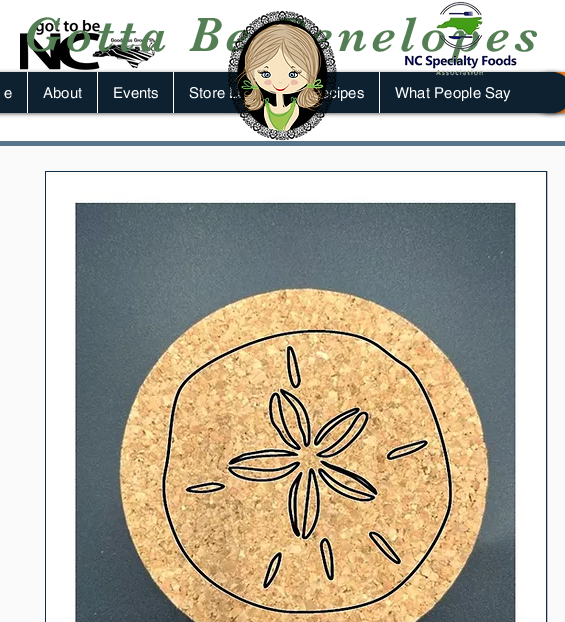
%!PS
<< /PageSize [565 622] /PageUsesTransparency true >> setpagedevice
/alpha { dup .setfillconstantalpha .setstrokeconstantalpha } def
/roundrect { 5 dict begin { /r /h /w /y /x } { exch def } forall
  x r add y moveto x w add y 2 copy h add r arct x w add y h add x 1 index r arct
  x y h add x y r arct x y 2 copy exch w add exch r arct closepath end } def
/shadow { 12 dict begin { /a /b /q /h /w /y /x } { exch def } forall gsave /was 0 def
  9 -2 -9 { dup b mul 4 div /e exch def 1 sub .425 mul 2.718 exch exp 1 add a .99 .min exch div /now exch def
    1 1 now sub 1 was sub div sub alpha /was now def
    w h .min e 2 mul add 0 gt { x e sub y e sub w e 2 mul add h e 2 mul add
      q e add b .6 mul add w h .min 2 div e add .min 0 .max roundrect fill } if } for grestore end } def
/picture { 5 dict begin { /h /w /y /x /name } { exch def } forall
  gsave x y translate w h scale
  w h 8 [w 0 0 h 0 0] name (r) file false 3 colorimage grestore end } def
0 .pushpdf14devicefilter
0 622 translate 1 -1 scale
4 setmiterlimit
0.98 setgray
0 0 565 622 rectfill
1 setgray
0 0 565 141 rectfill
0.345 0.459 0.549 setrgbcolor
0 141 565 5 rectfill
(img1.rgb) 20 20 139 51 picture
/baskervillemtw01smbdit-Regular [50 0 0 -50 0 0] selectfont
0.329 0.498 0.333 setrgbcolor
23 51 moveto 5 0 (Gotta Be Penelopes) ashow
0 setgray
530 73 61 41 20 2 0.6 shadow
0.969 0.514 0.118 setrgbcolor
552 72 13 41 rectfill
0 setgray
-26 73 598 41 20 2 0.6 shadow
0.051 0.129 0.188 setrgbcolor
-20 72 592 41 20 roundrect fill
/helvetica-Regular [15 0 0 -15 0 0] selectfont
1 setgray
189 98 moveto (Store L) show
329 98 moveto (cipes) show
(img2.rgb) 227 10 110 131 picture
(img3.rgb) 405 1 112 75 picture
4 98 moveto (e) show
27 72 1 41 rectfill
43 98 moveto (About) show
97 72 1 41 rectfill
113 98 moveto (Events) show
173 72 1 41 rectfill
379 72 1 41 rectfill
395 98 moveto (What People Say) show
0.055 0.18 0.278 setrgbcolor
45.5 171.5 501 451 rectstroke
(img4.rgb) 46 172 500 450 picture
.poppdf14devicefilter showpage
